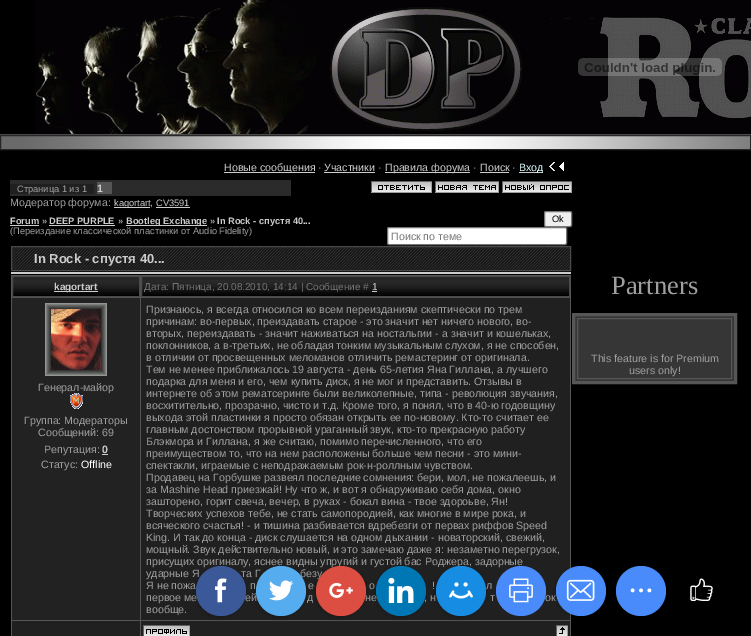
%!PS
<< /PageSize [751 636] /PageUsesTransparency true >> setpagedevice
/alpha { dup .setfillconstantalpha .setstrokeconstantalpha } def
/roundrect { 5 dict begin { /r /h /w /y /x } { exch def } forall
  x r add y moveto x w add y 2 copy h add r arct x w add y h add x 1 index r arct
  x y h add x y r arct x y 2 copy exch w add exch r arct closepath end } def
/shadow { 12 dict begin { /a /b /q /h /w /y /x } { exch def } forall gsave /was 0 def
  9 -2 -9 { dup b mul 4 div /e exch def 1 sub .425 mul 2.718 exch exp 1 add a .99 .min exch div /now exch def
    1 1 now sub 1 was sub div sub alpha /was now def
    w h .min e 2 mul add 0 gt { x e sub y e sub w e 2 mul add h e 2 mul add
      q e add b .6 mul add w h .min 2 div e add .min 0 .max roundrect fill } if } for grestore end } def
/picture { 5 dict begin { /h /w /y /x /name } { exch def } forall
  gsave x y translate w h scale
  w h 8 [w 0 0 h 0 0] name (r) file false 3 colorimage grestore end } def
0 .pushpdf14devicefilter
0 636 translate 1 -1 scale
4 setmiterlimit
0 setgray
0 0 751 636 rectfill
0.286 setgray
0 134 751 1 rectfill
(img1.rgb) 35 0 716 134 picture
(img2.rgb) 578 58 144 18 picture
(img3.rgb) 1 136 749 13 picture
0.149 setgray
0.5 135.5 750 14 rectstroke
0.8 setgray
224 172 91 1 rectfill
/LiberationSans-Regular [10.65 0 0 -10.65 0 0] selectfont
224 171 moveto (Новые сообщения) show
0.624 setgray
318 171 moveto (·) show
0.8 setgray
324 171 moveto (Участники) show
324 172 51 1 rectfill
0.624 setgray
378 171 moveto (·) show
0.8 setgray
385 172 85 1 rectfill
385 171 moveto (Правила форума) show
0.624 setgray
473 171 moveto (·) show
0.8 setgray
480 171 moveto (Поиск) show
480 172 29 1 rectfill
0.624 setgray
512 171 moveto (·) show
0.8 setgray
519 172 24 1 rectfill
0.878 1 1 setrgbcolor
519 171 moveto (Вход) show
(img4.rgb) 549 162 15 9 picture
0.169 setgray
10 180 281 16 rectfill
0.125 setgray
10 184 84 10 rectfill
/LiberationSans-Regular [9.3 0 0 -9.3 0 0] selectfont
0.624 setgray
17 192 moveto (Страница 1 из 1) show
0.333 setgray
97 182 15 12 rectfill
/LiberationSans-Bold [10.65 0 0 -10.65 0 0] selectfont
0.8 setgray
97 192 moveto (1) show
(img5.rgb) 371 181 61 12 picture
(img6.rgb) 435 181 64 12 picture
(img7.rgb) 502 181 70 12 picture
/LiberationSans-Regular [10.65 0 0 -10.65 0 0] selectfont
0.624 setgray
10 206 moveto (Модератор форума:) show
0.8 setgray
114 207 36 1 rectfill
/LiberationSans-Regular [9.3 0 0 -9.3 0 0] selectfont
114 206 moveto (kagortart) show
/LiberationSans-Regular [10.65 0 0 -10.65 0 0] selectfont
0.624 setgray
150 206 moveto (,) show
0.8 setgray
156 207 34 1 rectfill
/LiberationSans-Regular [9.3 0 0 -9.3 0 0] selectfont
156 206 moveto (CV3591) show
/LiberationSans-Bold [9.3 0 0 -9.3 0 0] selectfont
10 224 moveto (Forum) show
10 225 29 1 rectfill
0.624 setgray
42 224 moveto (») show
0.8 setgray
49 224 moveto (DEEP PURPLE) show
49 225 66 1 rectfill
0.624 setgray
118 224 moveto (») show
0.8 setgray
126 225 81 1 rectfill
126 224 moveto (Bootleg Exchange) show
0.624 setgray
210 224 moveto (») show
0.8 setgray
217 224 moveto (In Rock - спустя 40...) show
/LiberationSans-Regular [9.3 0 0 -9.3 0 0] selectfont
0.624 setgray
10 234 moveto (\(Переиздание классической пластинки от Audio Fidelity\)) show
0.937 setgray
544.5 211.5 27 15 1.5 roundrect gsave fill grestore
0.463 setgray
stroke
0 setgray
552 222 moveto (Ok) show
1 setgray
387.5 227.5 179 17 1.5 roundrect gsave fill grestore
0.463 setgray
stroke
/LiberationSans-Regular [10.65 0 0 -10.65 0 0] selectfont
0.459 setgray
391 240 moveto (Поиск по теме) show
(img8.rgb) 12 247 558 23 picture
0.286 setgray
11.5 246.5 559 24 rectstroke
/LiberationSans-Bold [13 0 0 -13 0 0] selectfont
0.8 setgray
34 263 moveto (In Rock - спустя 40...) show
11 272 560 2 rectfill
0.333 setgray
11 275 560 361 rectfill
0 setgray
13 295 126 1 rectfill
(img9.rgb) 13 277 126 18 picture
0.286 setgray
12.5 276.5 127 20 rectstroke
0.8 setgray
54 291 44 1 rectfill
/LiberationSans-Bold [10 0 0 -10 0 0] selectfont
54 290 moveto (kagortart) show
0 setgray
142 295 427 1 rectfill
(img10.rgb) 142 277 427 18 picture
0.286 setgray
141.5 276.5 428 20 rectstroke
/LiberationSans-Regular [10 0 0 -10 0 0] selectfont
0.459 setgray
144 290 moveto (Дата: Пятница, 20.08.2010, 14:14 | Сообщение #) show
0.8 setgray
372 290 moveto (1) show
372 291 5 1 rectfill
0.133 setgray
12 298 128 322 rectfill
(img11.rgb) 45 303 62 73 picture
/LiberationSans-Regular [10.65 0 0 -10.65 0 0] selectfont
0.624 setgray
38 391 moveto (Генерал-майор) show
(img12.rgb) 70 393 13 16 picture
24 424 moveto (Группа: Модераторы) show
38 436 moveto (Сообщений: 69) show
44 453 moveto (Репутация:) show
/LiberationSans-Bold [10.65 0 0 -10.65 0 0] selectfont
0.8 setgray
102 453 moveto (0) show
102 454 6 1 rectfill
/LiberationSans-Regular [10.65 0 0 -10.65 0 0] selectfont
0.624 setgray
41 468 moveto (Статус:) show
1 setgray
81 468 moveto (Offline) show
0.125 setgray
141 298 429 322 rectfill
0.624 setgray
146 313 moveto (Признаюсь, я всегда относился ко всем переизданиям скептически по трем) show
146 325 moveto (причинам: во-первых, преиздавать старое - это значит нет ничего нового, во-) show
146 337 moveto (вторых, переиздавать - значит наживаться на ностальгии - а значит и кошельках,) show
146 349 moveto (поклонников, а в-третьих, не обладая тонким музыкальным слухом, я не способен,) show
146 361 moveto (в отличии от просвещенных меломанов отличить ремастеринг от оригинала.) show
146 373 moveto (Тем не менее приближалось 19 августа - день 65-летия Яна Гиллана, а лучшего) show
146 385 moveto (подарка для меня и его, чем купить диск, я не мог и представить. Отзывы в) show
146 397 moveto (интернете об этом рематсеринге были великолепные, типа - революция звучания,) show
146 409 moveto (восхитительно, прозрачно, чисто и т.д. Кроме того, я понял, что в 40-ю годовщину) show
146 421 moveto (выхода этой пластинки я просто обязан открыть ее по-новому. Кто-то считает ее) show
146 433 moveto (главным достонством прорывной ураганный звук, кто-то прекрасную работу) show
146 445 moveto (Блэкмора и Гиллана, я же считаю, помимо перечисленного, что его) show
146 457 moveto (преимуществом то, что на нем расположены больше чем песни - это мини-) show
146 469 moveto (спектакли, играемые с неподражаемым рок-н-роллным чувством.) show
146 481 moveto (Продавец на Горбушке развеял последние сомнения: бери, мол, не пожалеешь, и) show
146 493 moveto (за Mashine Head приезжай! Ну что ж, и вот я обнаруживаю себя дома, окно) show
146 505 moveto (зашторено, горит свеча, вечер, в руках - бокал вина - твое здороьве, Ян!) show
146 517 moveto (Творческих успехов тебе, не стать самопородией, как многие в мире рока, и) show
146 529 moveto (всяческого счастья! - и тишина разбивается вдребезги от первах риффов Speed) show
146 541 moveto (King. И так до конца - диск слушается на одном дыхании - новаторский, свежий,) show
146 553 moveto (мощный. Звук действительно новый, и это замечаю даже я: незаметно перегрузок,) show
146 565 moveto (присущих оригиналу, яснее видны упругий и густой бас Роджера, задорные) show
146 577 moveto (ударные Я) show
241 577 moveto (та Г) show
300 577 moveto (безу) show
146 589 moveto (Я не пожа) show
250 589 moveto (п) show
308 589 moveto (е) show
369 589 moveto (о) show
432 589 moveto (!) show
486 589 moveto (л) show
146 601 moveto (первое ме) show
245 601 moveto (ей) show
307 601 moveto (д) show
365 601 moveto (не) show
424 601 moveto (, н) show
490 601 moveto (т) show
545 601 moveto (ок) show
146 613 moveto (вообще.) show
0.125 setgray
12 621 128 15 rectfill
141 621 429 15 rectfill
(img13.rgb) 143 625 47 11 picture
(img14.rgb) 556 625 12 11 picture
/LiberationSerif-Regular [26.5 0 0 -26.5 0 0] selectfont
0.624 setgray
611 294 moveto (Partners) show
0.212 setgray
newpath 573.5 314.5 moveto 735.5 314.5 lineto 735.5 382.5 lineto 573.5 382.5 lineto closepath gsave fill grestore
0.337 setgray
3 setlinewidth
stroke
1 setlinewidth
577.5 318.5 154 60 rectstroke
/LiberationSans-Regular [10.65 0 0 -10.65 0 0] selectfont
0.624 setgray
591 362 moveto (This feature is for Premium) show
629 374 moveto (users only!) show
0 setgray
195 567 50 50 25 2.5 0.2 shadow
0.231 0.349 0.596 setrgbcolor
newpath 221 591 25 0 360 arc closepath fill
(img15.rgb) 215 578 12 25 picture
0 setgray
255 567 50 50 25 2.5 0.2 shadow
0.333 0.675 0.933 setrgbcolor
newpath 281 591 25 0 360 arc closepath fill
(img16.rgb) 269 580 25 21 picture
0 setgray
315 567 50 50 25 2.5 0.2 shadow
0.863 0.306 0.255 setrgbcolor
newpath 341 591 25 0 360 arc closepath fill
(img17.rgb) 329 582 24 16 picture
0 setgray
375 567 50 50 25 2.5 0.2 shadow
0 0.467 0.71 setrgbcolor
newpath 401 591 25 0 360 arc closepath fill
(img18.rgb) 388 577 26 26 picture
0 setgray
435 567 50 50 25 2.5 0.2 shadow
0.086 0.553 0.886 setrgbcolor
newpath 461 591 25 0 360 arc closepath fill
(img19.rgb) 449 582 24 17 picture
0.286 0.545 0.98 setrgbcolor
newpath 521 591 25 0 360 arc closepath fill
(img20.rgb) 509 578 24 25 picture
0 setgray
555 567 50 50 25 2.5 0.2 shadow
0.286 0.545 0.98 setrgbcolor
newpath 581 591 25 0 360 arc closepath fill
(img21.rgb) 566 579 29 22 picture
newpath 641 591 25 0 360 arc closepath fill
(img22.rgb) 630 588 22 5 picture
(img23.rgb) 690 578 23 23 picture
.poppdf14devicefilter showpage
